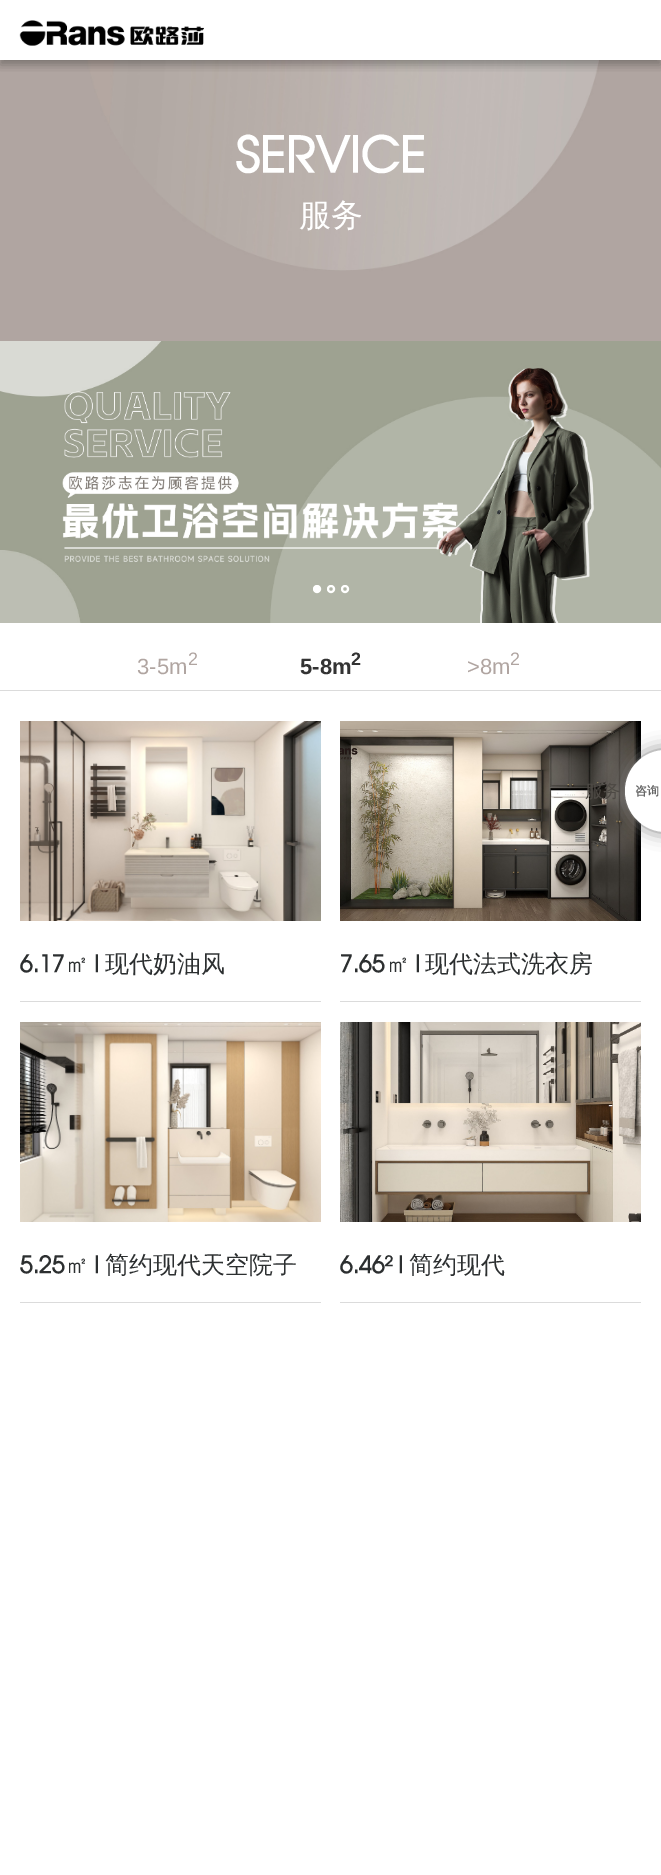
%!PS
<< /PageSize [661 1875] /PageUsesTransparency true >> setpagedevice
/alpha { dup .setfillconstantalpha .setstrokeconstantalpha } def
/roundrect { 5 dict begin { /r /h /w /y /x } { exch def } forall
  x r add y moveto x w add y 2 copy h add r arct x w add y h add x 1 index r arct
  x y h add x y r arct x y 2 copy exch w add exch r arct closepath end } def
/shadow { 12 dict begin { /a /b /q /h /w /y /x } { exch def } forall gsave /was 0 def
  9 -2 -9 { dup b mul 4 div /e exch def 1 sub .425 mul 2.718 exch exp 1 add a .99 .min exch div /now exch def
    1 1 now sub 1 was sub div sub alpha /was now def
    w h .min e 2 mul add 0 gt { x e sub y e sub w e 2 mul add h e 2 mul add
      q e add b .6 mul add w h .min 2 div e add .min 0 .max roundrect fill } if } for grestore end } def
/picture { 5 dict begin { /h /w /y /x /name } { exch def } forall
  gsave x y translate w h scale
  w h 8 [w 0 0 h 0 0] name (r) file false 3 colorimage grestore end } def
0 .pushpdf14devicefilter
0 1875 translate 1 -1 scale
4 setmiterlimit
1 setgray
0 0 661 1875 rectfill
(img2.rgb) 0 60 661 281 picture
gsave
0 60 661 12 rectclip
0 setgray
0 5 661 60 0 5 0.3 shadow
grestore
(img1.rgb) 19 20 185 26 picture
/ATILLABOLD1-Bold [50 0 0 -50 0 0] selectfont
236 172 moveto (SERVICE) show
/WenQuanYiZenHei-Medium [32 0 0 -32 0 0] selectfont
299 226 moveto (服务) show
(img3.rgb) 0 341 661 282 picture
newpath 317 589 3 0 360 arc closepath gsave fill grestore
2 setlinewidth
stroke
newpath 331 589 3 0 360 arc closepath stroke
newpath 345 589 3 0 360 arc closepath stroke
0.859 setgray
0 690 661 1 rectfill
/LiberationSans-Regular [22 0 0 -22 0 0] selectfont
0.69 0.647 0.631 setrgbcolor
137 674 moveto (3-5m) show
/LiberationSans-Regular [18 0 0 -18 0 0] selectfont
188 665 moveto (2) show
/LiberationSans-Bold [22 0 0 -22 0 0] selectfont
0.2 setgray
300 674 moveto (5-8m) show
/LiberationSans-Bold [18 0 0 -18 0 0] selectfont
351 665 moveto (2) show
/LiberationSans-Regular [22 0 0 -22 0 0] selectfont
0.69 0.647 0.631 setrgbcolor
467 674 moveto (>8m) show
/LiberationSans-Regular [18 0 0 -18 0 0] selectfont
510 665 moveto (2) show
0.859 setgray
20 1001 301 1 rectfill
(img4.rgb) 20 721 301 200 picture
/ATILLABOLD1-Bold [24 0 0 -24 0 0] selectfont
0.173 0.184 0.188 setrgbcolor
20 972 moveto (6.17) show
/WenQuanYiZenHei-Medium [24 0 0 -24 0 0] selectfont
65 972 moveto (㎡) show
/ATILLABOLD1-Bold [24 0 0 -24 0 0] selectfont
89 972 moveto (|) show
/WenQuanYiZenHei-Medium [24 0 0 -24 0 0] selectfont
105 972 moveto (现代奶油风) show
0.859 setgray
340 1001 301 1 rectfill
(img5.rgb) 340 721 301 200 picture
/ATILLABOLD1-Bold [24 0 0 -24 0 0] selectfont
0.173 0.184 0.188 setrgbcolor
340 972 moveto (7.65) show
/WenQuanYiZenHei-Medium [24 0 0 -24 0 0] selectfont
386 972 moveto (㎡) show
/ATILLABOLD1-Bold [24 0 0 -24 0 0] selectfont
410 972 moveto (|) show
/WenQuanYiZenHei-Medium [24 0 0 -24 0 0] selectfont
425 972 moveto (现代法式洗衣房) show
0.859 setgray
20 1302 301 1 rectfill
(img6.rgb) 20 1022 301 200 picture
/ATILLABOLD1-Bold [24 0 0 -24 0 0] selectfont
0.173 0.184 0.188 setrgbcolor
20 1273 moveto (5.25) show
/WenQuanYiZenHei-Medium [24 0 0 -24 0 0] selectfont
65 1273 moveto (㎡) show
/ATILLABOLD1-Bold [24 0 0 -24 0 0] selectfont
89 1273 moveto (|) show
/WenQuanYiZenHei-Medium [24 0 0 -24 0 0] selectfont
105 1273 moveto (简约现代天空院子) show
0.859 setgray
340 1302 301 1 rectfill
(img7.rgb) 340 1022 301 200 picture
/ATILLABOLD1-Bold [24 0 0 -24 0 0] selectfont
0.173 0.184 0.188 setrgbcolor
340 1273 moveto (6.46²|) show
/WenQuanYiZenHei-Medium [24 0 0 -24 0 0] selectfont
409 1273 moveto (简约现代) show
0.498 setgray
626 750 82 82 41 9 1 shadow
1 setgray
625 750 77 82 41 roundrect fill
/WenQuanYiZenHei-Medium [18 0 0 -18 0 0] selectfont
0.306 0.29 0.271 setrgbcolor
585 797 moveto (服务) show
/WenQuanYiZenHei-Bold [12 0 0 -12 0 0] selectfont
0.4 setgray
635 795 moveto (咨询) show
.poppdf14devicefilter showpage
